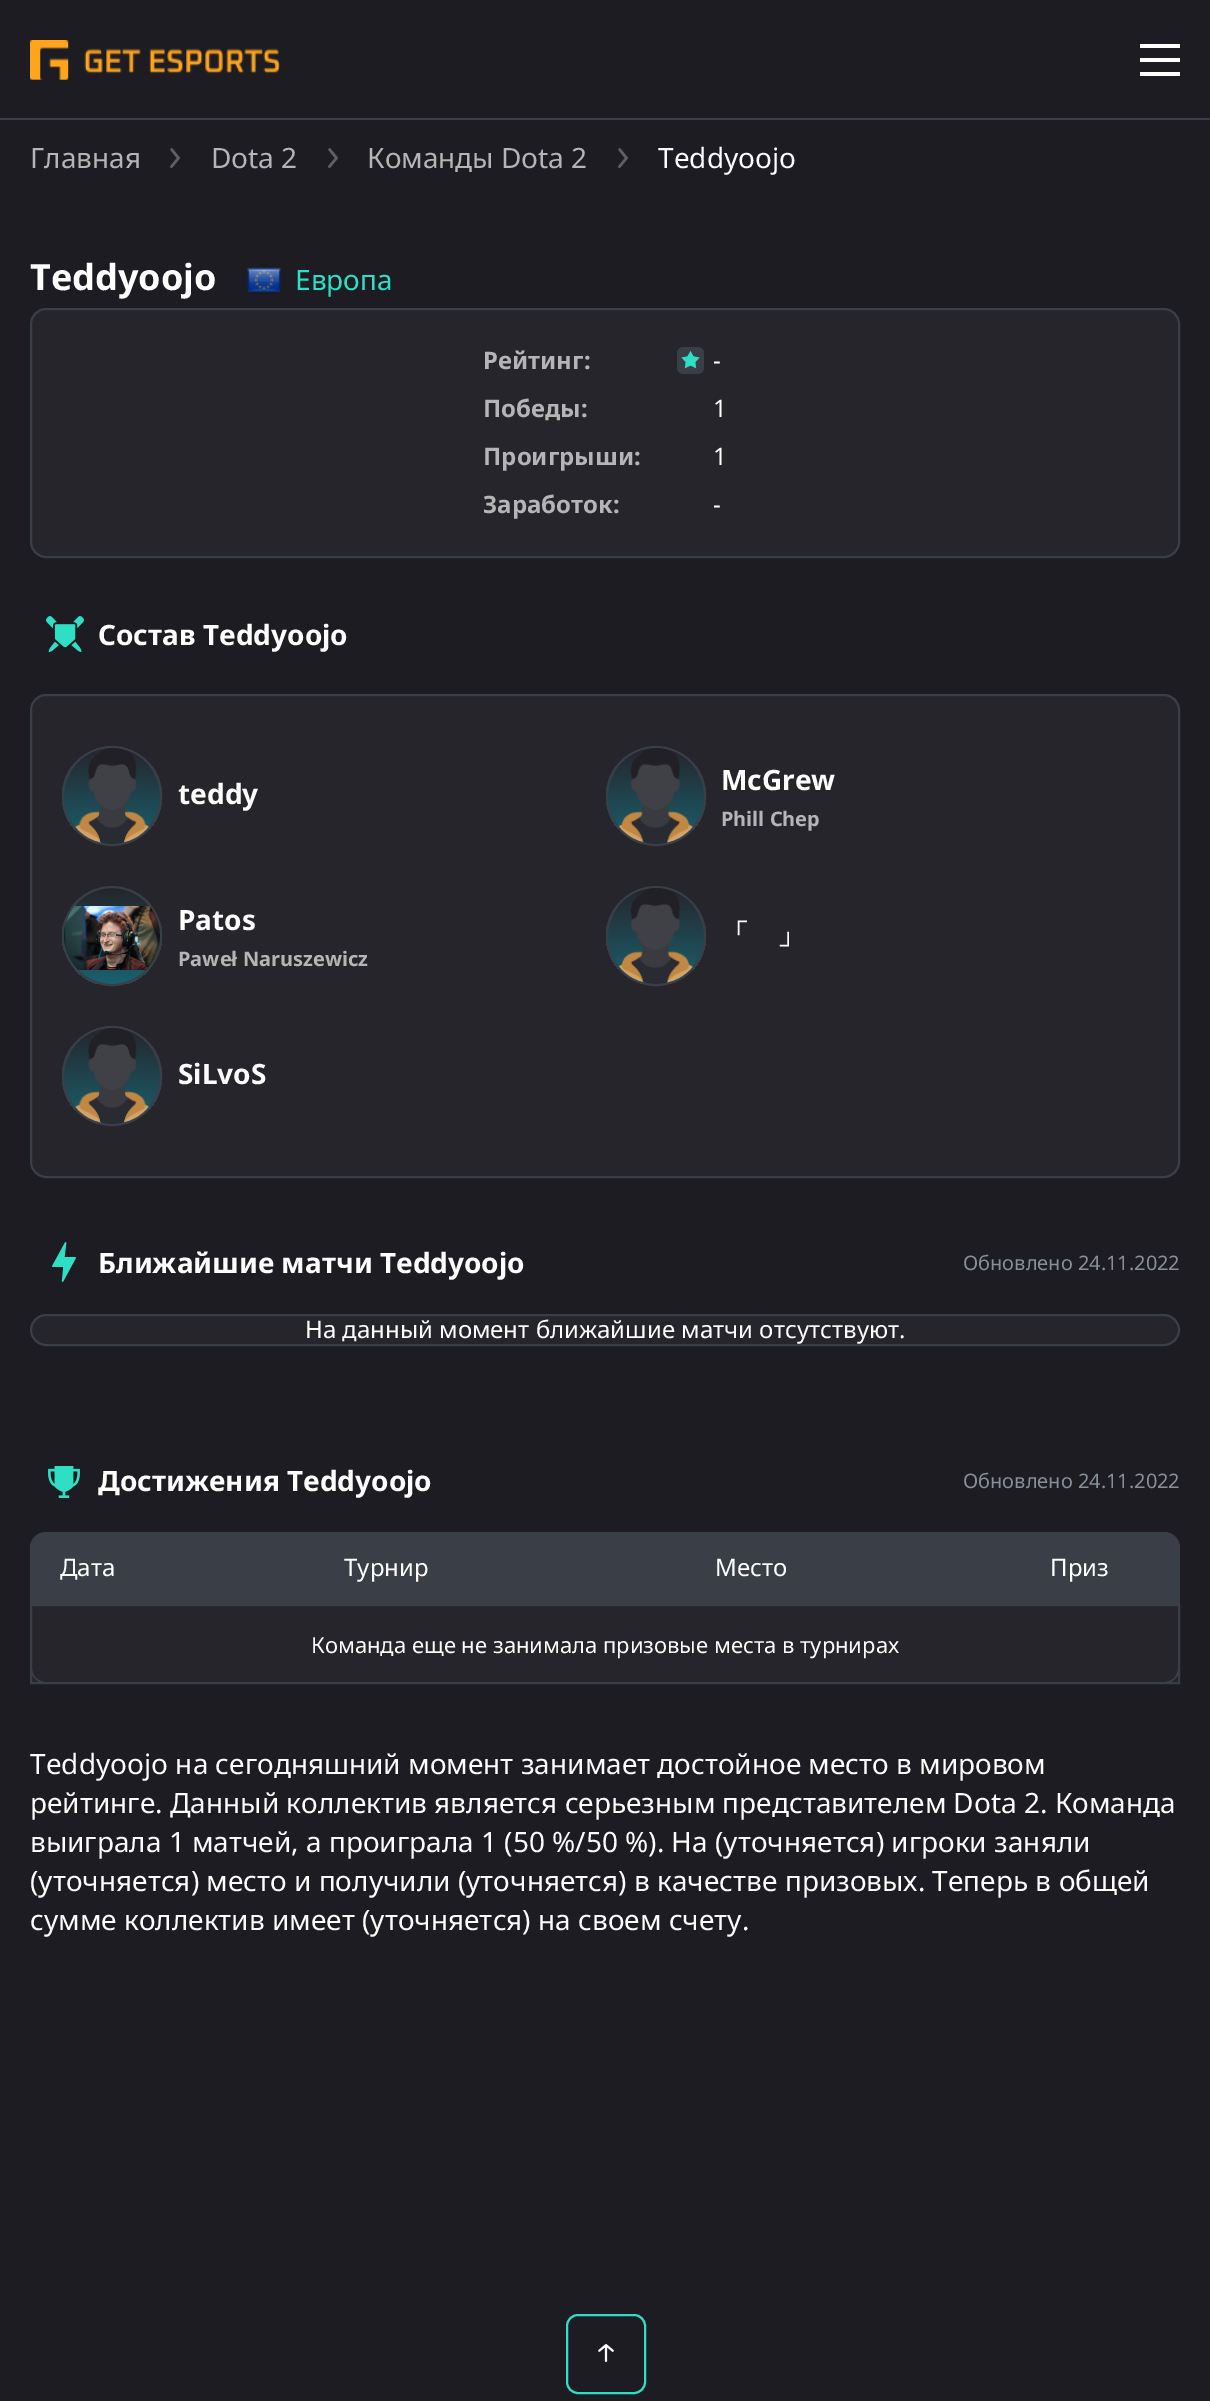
%!PS
<< /PageSize [1210 2401] >> setpagedevice
/roundrect { 5 dict begin { /r /h /w /y /x } { exch def } forall
  x r add y moveto x w add y 2 copy h add r arct x w add y h add x 1 index r arct
  x y h add x y r arct x y 2 copy exch w add exch r arct closepath end } def
/picture { 5 dict begin { /h /w /y /x /name } { exch def } forall
  gsave x y translate w h scale
  w h 8 [w 0 0 h 0 0] name (r) file false 3 colorimage grestore end } def
0 2401 translate 1 -1 scale
4 setmiterlimit
0.11 0.11 0.133 setrgbcolor
0 0 1210 2401 rectfill
(img1.rgb) 30 40 250 40 picture
1 setgray
1140 44 40 4 rectfill
1140 58 40 4 rectfill
1140 72 40 4 rectfill
0.227 0.247 0.278 setrgbcolor
0 118 1210 2 rectfill
/NotoSans-Regular [28 0 0 -28 0 0] selectfont
0.71 setgray
30 168 moveto (Главная) show
(img2.rgb) 170 148 10 20 picture
211 168 moveto (Dota 2) show
(img2.rgb) 328 148 10 20 picture
367 168 moveto (Команды Dota 2) show
(img2.rgb) 618 148 10 20 picture
1 setgray
658 168 moveto (Teddyoojo) show
/NotoSans-Bold [36 0 0 -36 0 0] selectfont
30 290 moveto (Teddyoojo) show
(img3.rgb) 247 267 34 27 picture
/NotoSans-Regular [28 0 0 -28 0 0] selectfont
0.184 0.875 0.773 setrgbcolor
295 290 moveto (Европа) show
0.145 0.145 0.169 setrgbcolor
31 309 1148 248 15 roundrect gsave fill grestore
0.227 0.247 0.278 setrgbcolor
2 setlinewidth
stroke
/NotoSans-Bold [24 0 0 -24 0 0] selectfont
0.71 setgray
483 369 moveto (Рейтинг:) show
(img4.rgb) 677 347 27 27 picture
/NotoSans-Regular [24 0 0 -24 0 0] selectfont
1 setgray
713 369 moveto (-) show
/NotoSans-Bold [24 0 0 -24 0 0] selectfont
0.71 setgray
483 417 moveto (Победы:) show
/NotoSans-Regular [24 0 0 -24 0 0] selectfont
1 setgray
713 417 moveto (1) show
/NotoSans-Bold [24 0 0 -24 0 0] selectfont
0.71 setgray
483 465 moveto (Проигрыши:) show
/NotoSans-Regular [24 0 0 -24 0 0] selectfont
1 setgray
713 465 moveto (1) show
/NotoSans-Bold [24 0 0 -24 0 0] selectfont
0.71 setgray
483 513 moveto (Заработок:) show
/NotoSans-Regular [24 0 0 -24 0 0] selectfont
1 setgray
713 513 moveto (-) show
(img5.rgb) 46 616 38 36 picture
/NotoSans-Bold [28 0 0 -28 0 0] selectfont
98 645 moveto (Состав Teddyoojo) show
0.145 0.145 0.169 setrgbcolor
31 695 1148 482 15 roundrect gsave fill grestore
0.227 0.247 0.278 setrgbcolor
stroke
gsave
62 746 100 100 50 roundrect clip newpath
gsave newpath 62 748 moveto 162 748 lineto 162 844 lineto 62 844 lineto closepath clip newpath
<< /ShadingType 2 /ColorSpace /DeviceRGB /Coords [112 858 112 748] /Extend [true true] /Function << /FunctionType 2 /Domain [0 1] /C0 [0.09 0.416 0.475] /C1 [0.145 0.145 0.169] /N 1 >> >> shfill grestore
grestore
newpath 112 796 49 0 360 arc closepath stroke
(img6.rgb) 75 748 74 96 picture
1 setgray
178 804 moveto (teddy) show
gsave
606 746 100 100 50 roundrect clip newpath
gsave newpath 606 748 moveto 706 748 lineto 706 844 lineto 606 844 lineto closepath clip newpath
<< /ShadingType 2 /ColorSpace /DeviceRGB /Coords [656 858 656 748] /Extend [true true] /Function << /FunctionType 2 /Domain [0 1] /C0 [0.09 0.416 0.475] /C1 [0.145 0.145 0.169] /N 1 >> >> shfill grestore
grestore
0.227 0.247 0.278 setrgbcolor
newpath 656 796 49 0 360 arc closepath stroke
(img7.rgb) 618 748 75 96 picture
1 setgray
721 790 moveto (McGrew) show
/NotoSans-Bold [20 0 0 -20 0 0] selectfont
0.71 setgray
721 826 moveto (Phill Chep) show
gsave
62 886 100 100 50 roundrect clip newpath
gsave newpath 62 888 moveto 162 888 lineto 162 984 lineto 62 984 lineto closepath clip newpath
<< /ShadingType 2 /ColorSpace /DeviceRGB /Coords [112 998 112 888] /Extend [true true] /Function << /FunctionType 2 /Domain [0 1] /C0 [0.09 0.416 0.475] /C1 [0.145 0.145 0.169] /N 1 >> >> shfill grestore
grestore
0.227 0.247 0.278 setrgbcolor
newpath 112 936 49 0 360 arc closepath stroke
(img8.rgb) 64 906 96 64 picture
/NotoSans-Bold [28 0 0 -28 0 0] selectfont
1 setgray
178 930 moveto (Patos) show
/NotoSans-Bold [20 0 0 -20 0 0] selectfont
0.71 setgray
178 966 moveto (Paweł Naruszewicz) show
gsave
606 886 100 100 50 roundrect clip newpath
gsave newpath 606 888 moveto 706 888 lineto 706 984 lineto 606 984 lineto closepath clip newpath
<< /ShadingType 2 /ColorSpace /DeviceRGB /Coords [656 998 656 888] /Extend [true true] /Function << /FunctionType 2 /Domain [0 1] /C0 [0.09 0.416 0.475] /C1 [0.145 0.145 0.169] /N 1 >> >> shfill grestore
grestore
0.227 0.247 0.278 setrgbcolor
newpath 656 936 49 0 360 arc closepath stroke
(img9.rgb) 618 888 75 96 picture
/WenQuanYiZenHei-Bold [28 0 0 -28 0 0] selectfont
1 setgray
721 944 moveto (「　」) show
gsave
62 1026 100 100 50 roundrect clip newpath
gsave newpath 62 1028 moveto 162 1028 lineto 162 1124 lineto 62 1124 lineto closepath clip newpath
<< /ShadingType 2 /ColorSpace /DeviceRGB /Coords [112 1138 112 1028] /Extend [true true] /Function << /FunctionType 2 /Domain [0 1] /C0 [0.09 0.416 0.475] /C1 [0.145 0.145 0.169] /N 1 >> >> shfill grestore
grestore
0.227 0.247 0.278 setrgbcolor
newpath 112 1076 49 0 360 arc closepath stroke
(img10.rgb) 75 1028 74 96 picture
/NotoSans-Bold [28 0 0 -28 0 0] selectfont
1 setgray
178 1084 moveto (SiLvoS) show
(img11.rgb) 52 1242 24 40 picture
98 1273 moveto (Ближайшие матчи Teddyoojo) show
/NotoSans-Regular [20 0 0 -20 0 0] selectfont
0.533 0.561 0.604 setrgbcolor
963 1270 moveto (Обновлено 24.11.2022) show
0.145 0.145 0.169 setrgbcolor
31 1315 1148 30 15 roundrect gsave fill grestore
0.227 0.247 0.278 setrgbcolor
stroke
/NotoSans-Regular [24 0 0 -24 0 0] selectfont
1 setgray
305 1338 moveto (На данный момент ближайшие матчи отсутствуют.) show
(img12.rgb) 48 1466 32 32 picture
/NotoSans-Bold [28 0 0 -28 0 0] selectfont
98 1491 moveto (Достижения Teddyoojo) show
/NotoSans-Regular [20 0 0 -20 0 0] selectfont
0.533 0.561 0.604 setrgbcolor
963 1488 moveto (Обновлено 24.11.2022) show
0.227 0.247 0.278 setrgbcolor
newpath 46 1532 moveto 314 1532 lineto 314 1604 lineto 30 1604 lineto 30 1548 lineto 30 1539 37 1532 46 1532 curveto closepath fill
/NotoSans-Regular [24 0 0 -24 0 0] selectfont
1 setgray
60 1576 moveto (Дата) show
0.227 0.247 0.278 setrgbcolor
314 1532 706 72 rectfill
1 setgray
344 1576 moveto (Турнир) show
715 1576 moveto (Место) show
0.227 0.247 0.278 setrgbcolor
newpath 1020 1532 moveto 1164 1532 lineto 1173 1532 1180 1539 1180 1548 curveto 1180 1604 lineto 1020 1604 lineto closepath fill
1 setgray
1050 1576 moveto (Приз) show
0.145 0.145 0.169 setrgbcolor
newpath 31 1605 moveto 1179 1605 lineto 1179 1683 lineto 31 1683 lineto closepath gsave fill grestore
0.227 0.247 0.278 setrgbcolor
stroke
newpath 314 1684 moveto 312 1682 lineto 46 1682 lineto 42 1682 38 1680 36 1678 curveto 35 1679 lineto 38 1682 42 1684 46 1684 curveto closepath fill
newpath 32 1606 moveto 30 1604 lineto 30 1668 lineto 30 1672 32 1676 35 1679 curveto 36 1678 lineto 34 1676 32 1672 32 1668 curveto closepath fill
/NotoSans-Regular [22 0 0 -22 0 0] selectfont
1 setgray
311 1653 moveto (Команда еще не занимала призовые места в турнирах) show
0.227 0.247 0.278 setrgbcolor
newpath 1180 1604 moveto 1178 1606 lineto 1178 1668 lineto 1178 1672 1176 1676 1174 1678 curveto 1175 1679 lineto 1178 1676 1180 1672 1180 1668 curveto closepath fill
newpath 1164 1684 moveto 1168 1684 1172 1682 1175 1679 curveto 1174 1678 lineto 1172 1680 1168 1682 1164 1682 curveto 1022 1682 lineto 1020 1684 lineto closepath fill
/NotoSans-Regular [28 0 0 -28 0 0] selectfont
1 setgray
30 1774 moveto (Teddyoojo на сегодняшний момент занимает достойное место в мировом) show
30 1813 moveto (рейтинге. Данный коллектив является серьезным представителем Dota 2. Команда) show
30 1852 moveto (выиграла 1 матчей, а проиграла 1 \(50 %/50 %\). На \(уточняется\) игроки заняли) show
30 1891 moveto (\(уточняется\) место и получили \(уточняется\) в качестве призовых. Теперь в общей) show
30 1930 moveto (сумме коллектив имеет \(уточняется\) на своем счету.) show
0.184 0.875 0.773 setrgbcolor
567 2315 78 78 11 roundrect stroke
(img13.rgb) 598 2344 16 18 picture
showpage
